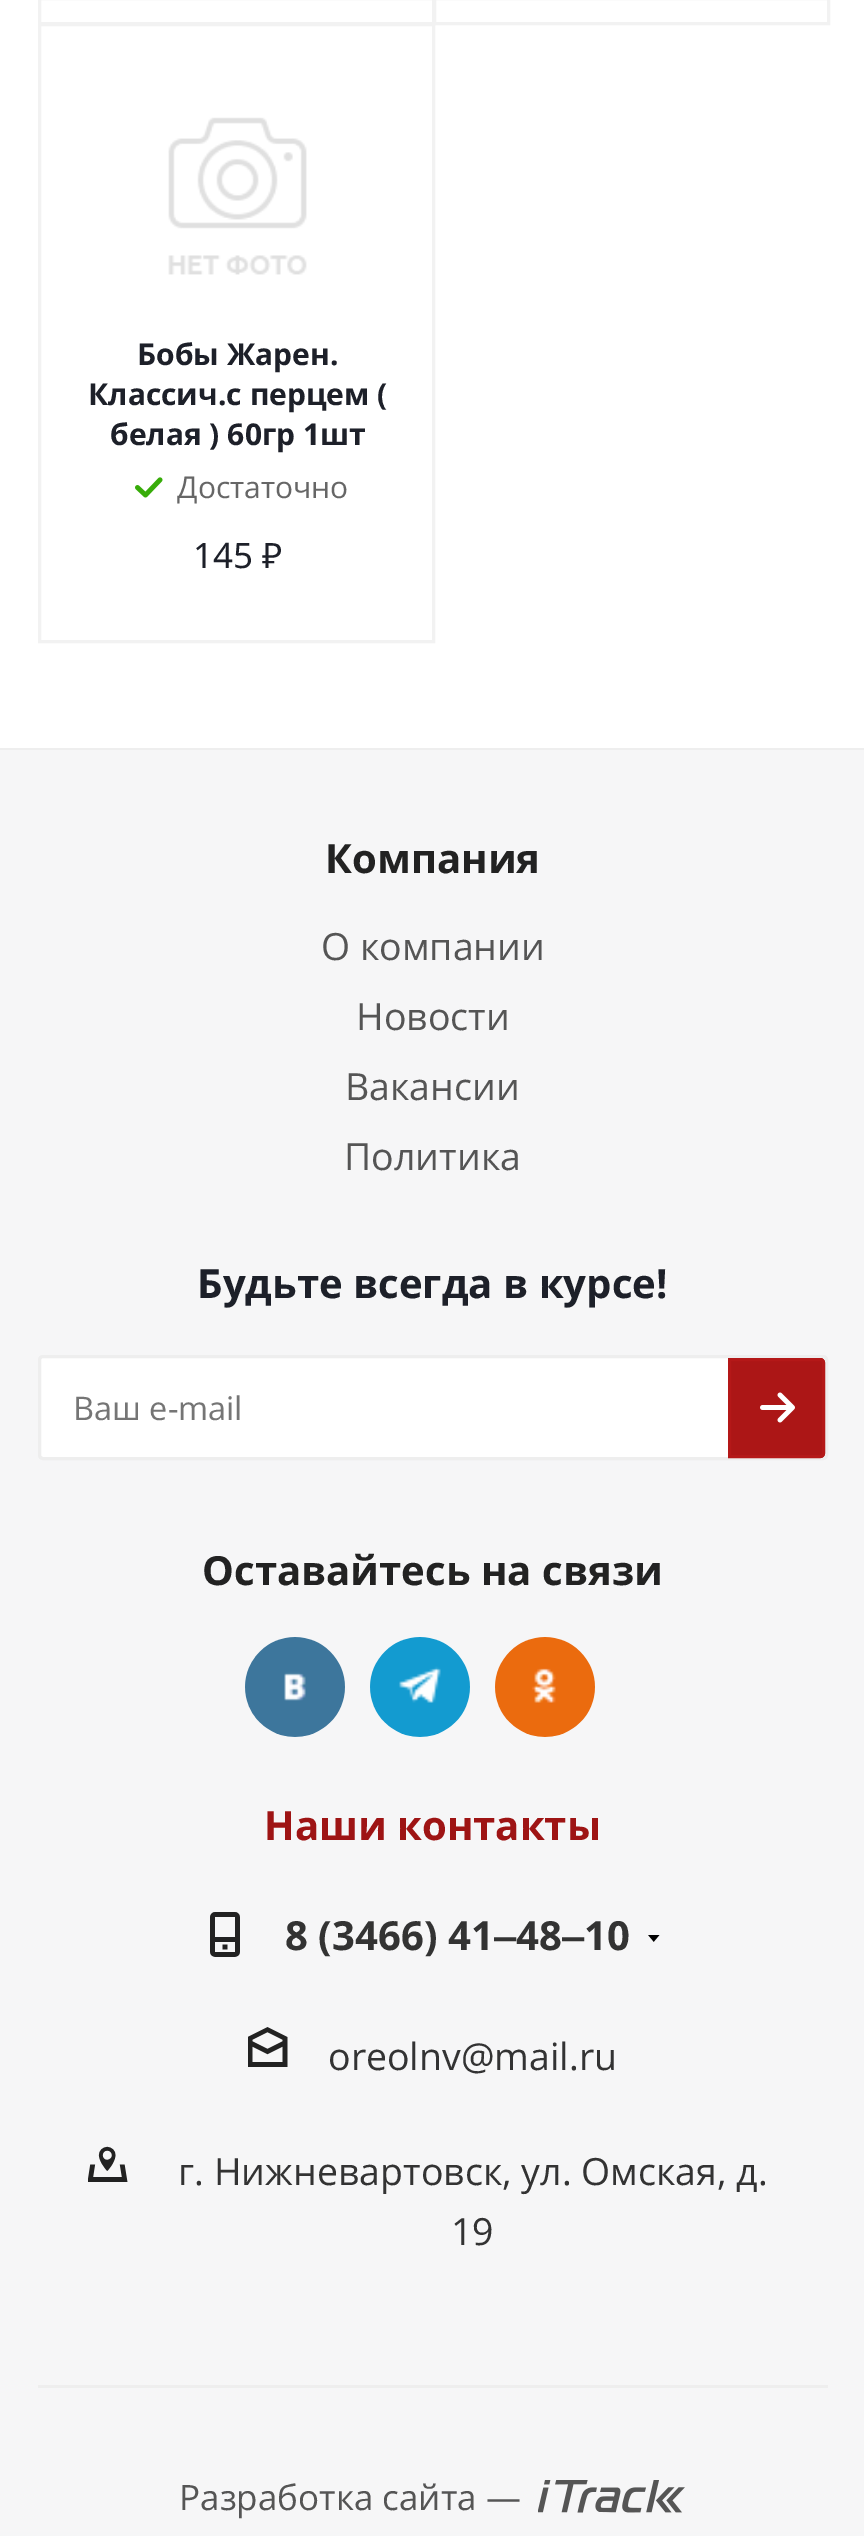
%!PS
<< /PageSize [864 2536] >> setpagedevice
/roundrect { 5 dict begin { /r /h /w /y /x } { exch def } forall
  x r add y moveto x w add y 2 copy h add r arct x w add y h add x 1 index r arct
  x y h add x y r arct x y 2 copy exch w add exch r arct closepath end } def
/picture { 5 dict begin { /h /w /y /x /name } { exch def } forall
  gsave x y translate w h scale
  w h 8 [w 0 0 h 0 0] name (r) file false 3 colorimage grestore end } def
0 2536 translate 1 -1 scale
4 setmiterlimit
1 setgray
0 0 864 2536 rectfill
0.949 setgray
3 setlinewidth
39.5 -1.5 394 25 rectstroke
434.5 -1.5 394 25 rectstroke
39.5 24.5 394 617 rectstroke
(img1.rgb) 168 117 139 158 picture
/OpenSans-Bold [30 0 0 -30 0 0] selectfont
0.114 0.125 0.161 setrgbcolor
137 365 moveto (Бобы Жарен.) show
88 405 moveto (Классич.с перцем \() show
110 445 moveto (белая \) 60гр 1шт) show
(img2.rgb) 135 477 28 21 picture
/OpenSans-Regular [30 0 0 -30 0 0] selectfont
0.4 setgray
177 498 moveto (Достаточно) show
/NotoSans-Regular [35 0 0 -35 0 0] selectfont
0.114 0.125 0.161 setrgbcolor
193 568 moveto (145 ₽) show
0.933 setgray
0 748 864 2 rectfill
0.965 0.965 0.969 setrgbcolor
0 750 864 1786 rectfill
/OpenSans-Bold [40.1 0 0 -40.1 0 0] selectfont
0.133 setgray
325 873 moveto (Компания) show
/OpenSans-Regular [37.5 0 0 -37.5 0 0] selectfont
0.333 setgray
321 960 moveto (О компании) show
356 1030 moveto (Новости) show
345 1100 moveto (Вакансии) show
344 1170 moveto (Политика) show
/OpenSans-Bold [40.1 0 0 -40.1 0 0] selectfont
0.114 0.125 0.161 setrgbcolor
197 1298 moveto (Будьте всегда в курсе!) show
1 setgray
39.5 1356.5 787 102 3.5 roundrect gsave fill grestore
0.933 setgray
stroke
/OpenSans-Regular [32.5 0 0 -32.5 0 0] selectfont
0.459 setgray
73 1420 moveto (Ваш e-mail) show
0.675 0.086 0.086 setrgbcolor
newpath 728 1358 moveto 820 1358 lineto 823 1358 825 1360 825 1363 curveto 825 1453 lineto 825 1456 823 1458 820 1458 curveto 728 1458 lineto closepath fill
(img3.rgb) 760 1392 35 31 picture
0.706 0.094 0.094 setrgbcolor
newpath 729.5 1359.5 moveto 820 1359.5 lineto 822 1359.5 823.5 1361 823.5 1363 curveto 823.5 1453 lineto 823.5 1455 822 1456.5 820 1456.5 curveto 729.5 1456.5 lineto closepath stroke
/OpenSans-Bold [40.1 0 0 -40.1 0 0] selectfont
0.133 setgray
202 1585 moveto (Оставайтесь на связи) show
(img4.rgb) 245 1637 100 100 picture
(img5.rgb) 370 1637 100 100 picture
(img6.rgb) 495 1637 100 100 picture
0.62 0.078 0.078 setrgbcolor
264 1840 moveto (Наши контакты) show
(img7.rgb) 210 1912 30 45 picture
0.2 setgray
285 1950 moveto (8 \(3466\) 41) show
/LiberationSans-Bold [40.1 0 0 -40.1 0 0] selectfont
494 1950 moveto (‒) show
/OpenSans-Bold [40.1 0 0 -40.1 0 0] selectfont
516 1950 moveto (48) show
/LiberationSans-Bold [40.1 0 0 -40.1 0 0] selectfont
562 1950 moveto (‒) show
/OpenSans-Bold [40.1 0 0 -40.1 0 0] selectfont
584 1950 moveto (10) show
(img8.rgb) 648 1935 12 7 picture
(img9.rgb) 248 2027 40 40 picture
/OpenSans-Regular [37.5 0 0 -37.5 0 0] selectfont
328 2070 moveto (oreolnv@mail.ru) show
(img10.rgb) 88 2146 40 36 picture
178 2185 moveto (г. Нижневартовск, ул. Омская, д.) show
451 2245 moveto (19) show
0.933 setgray
38 2385 790 3 rectfill
/OpenSans-Regular [35 0 0 -35 0 0] selectfont
0.333 setgray
179 2510 moveto (Разработка сайта —) show
(img11.rgb) 538 2480 147 33 picture
showpage
